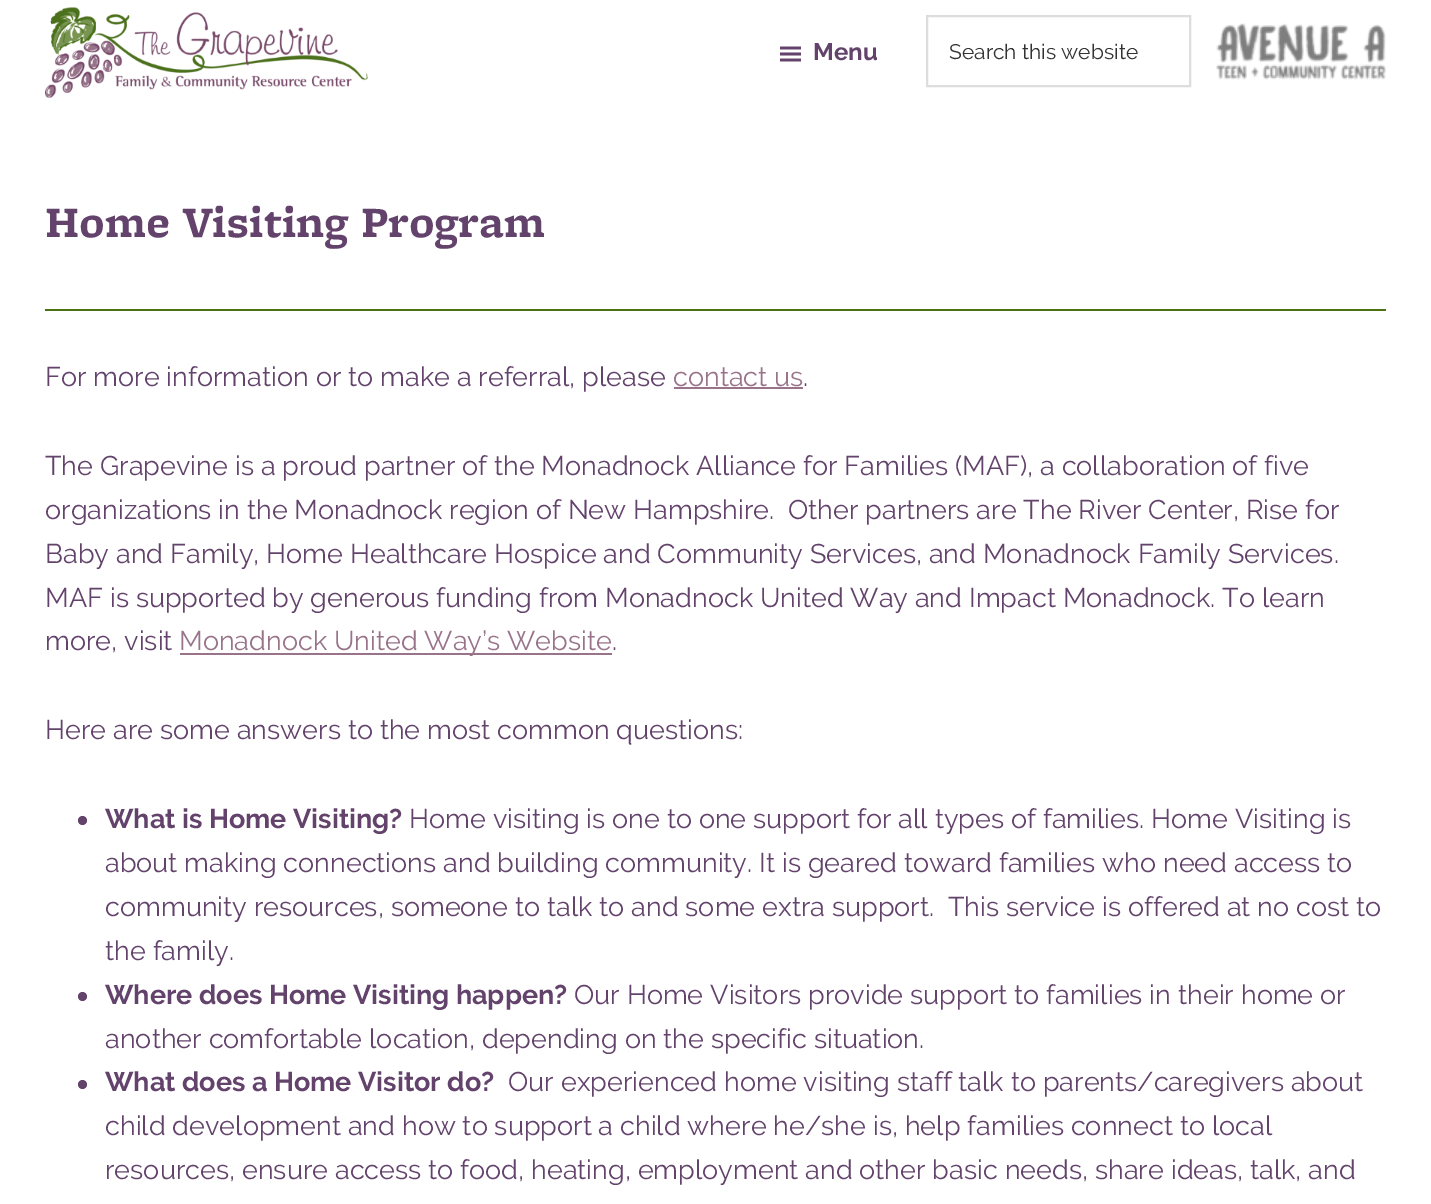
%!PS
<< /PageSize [1431 1204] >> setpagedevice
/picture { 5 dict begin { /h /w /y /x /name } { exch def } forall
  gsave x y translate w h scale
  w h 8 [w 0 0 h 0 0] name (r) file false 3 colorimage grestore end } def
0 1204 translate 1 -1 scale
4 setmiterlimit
1 setgray
0 0 1431 1204 rectfill
(img1.rgb) 45 7 323 91 picture
(img2.rgb) 780 46 21 16 picture
/Raleway-Bold [24 0 0 -24 0 0] selectfont
0.388 0.263 0.424 setrgbcolor
813 60 moveto (Menu) show
0.867 setgray
2 setlinewidth
927 16 263 70 rectstroke
/Raleway-Regular [21 0 0 -21 0 0] selectfont
0.2 setgray
949 59 moveto (Search this website) show
(img3.rgb) 1216 23 170 57 picture
/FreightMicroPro-Bold [45 0 0 -45 0 0] selectfont
0.388 0.263 0.424 setrgbcolor
45 237 moveto (Home Visiting Program) show
0.29 0.447 0.075 setrgbcolor
45 309 1341 2 rectfill
/Raleway-Regular [27 0 0 -27 0 0] selectfont
0.388 0.263 0.424 setrgbcolor
45 386 moveto (For more information or to make a referral, please) show
0.596 0.451 0.541 setrgbcolor
673 386 moveto (contact us) show
674 387 129 2 rectfill
0.388 0.263 0.424 setrgbcolor
803 386 moveto (.) show
45 475 moveto (The Grapevine is a proud partner of the Monadnock Alliance for Families \(MAF\), a collaboration of five) show
45 519 moveto (organizations in the Monadnock region of New Hampshire.  Other partners are The River Center, Rise for) show
45 563 moveto (Baby and Family, Home Healthcare Hospice and Community Services, and Monadnock Family Services.) show
45 607 moveto (MAF is supported by generous funding from Monadnock United Way and Impact Monadnock. To learn) show
45 650 moveto (more, visit) show
0.596 0.451 0.541 setrgbcolor
180 653 432 2 rectfill
179 650 moveto (Monadnock United Way’s Website) show
0.388 0.263 0.424 setrgbcolor
612 650 moveto (.) show
45 739 moveto (Here are some answers to the most common questions:) show
newpath 82.5 820.5 4.5 0 360 arc closepath fill
/Raleway-Bold [27 0 0 -27 0 0] selectfont
105 828 moveto (What is Home Visiting?) show
/Raleway-Regular [27 0 0 -27 0 0] selectfont
409 828 moveto (Home visiting is one to one support for all types of families. Home Visiting is) show
105 872 moveto (about making connections and building community. It is geared toward families who need access to) show
105 916 moveto (community resources, someone to talk to and some extra support.  This service is offered at no cost to) show
105 960 moveto (the family.) show
newpath 82.5 996.5 4.5 0 360 arc closepath fill
/Raleway-Bold [27 0 0 -27 0 0] selectfont
105 1004 moveto (Where does Home Visiting happen?) show
/Raleway-Regular [27 0 0 -27 0 0] selectfont
574 1004 moveto (Our Home Visitors provide support to families in their home or) show
105 1048 moveto (another comfortable location, depending on the specific situation.) show
newpath 82.5 1084.5 4.5 0 360 arc closepath fill
/Raleway-Bold [27 0 0 -27 0 0] selectfont
105 1091 moveto (What does a Home Visitor do?) show
/Raleway-Regular [27 0 0 -27 0 0] selectfont
508 1091 moveto (Our experienced home visiting staff talk to parents/caregivers about) show
105 1135 moveto (child development and how to support a child where he/she is, help families connect to local) show
105 1179 moveto (resources, ensure access to food, heating, employment and other basic needs, share ideas, talk, and) show
showpage
